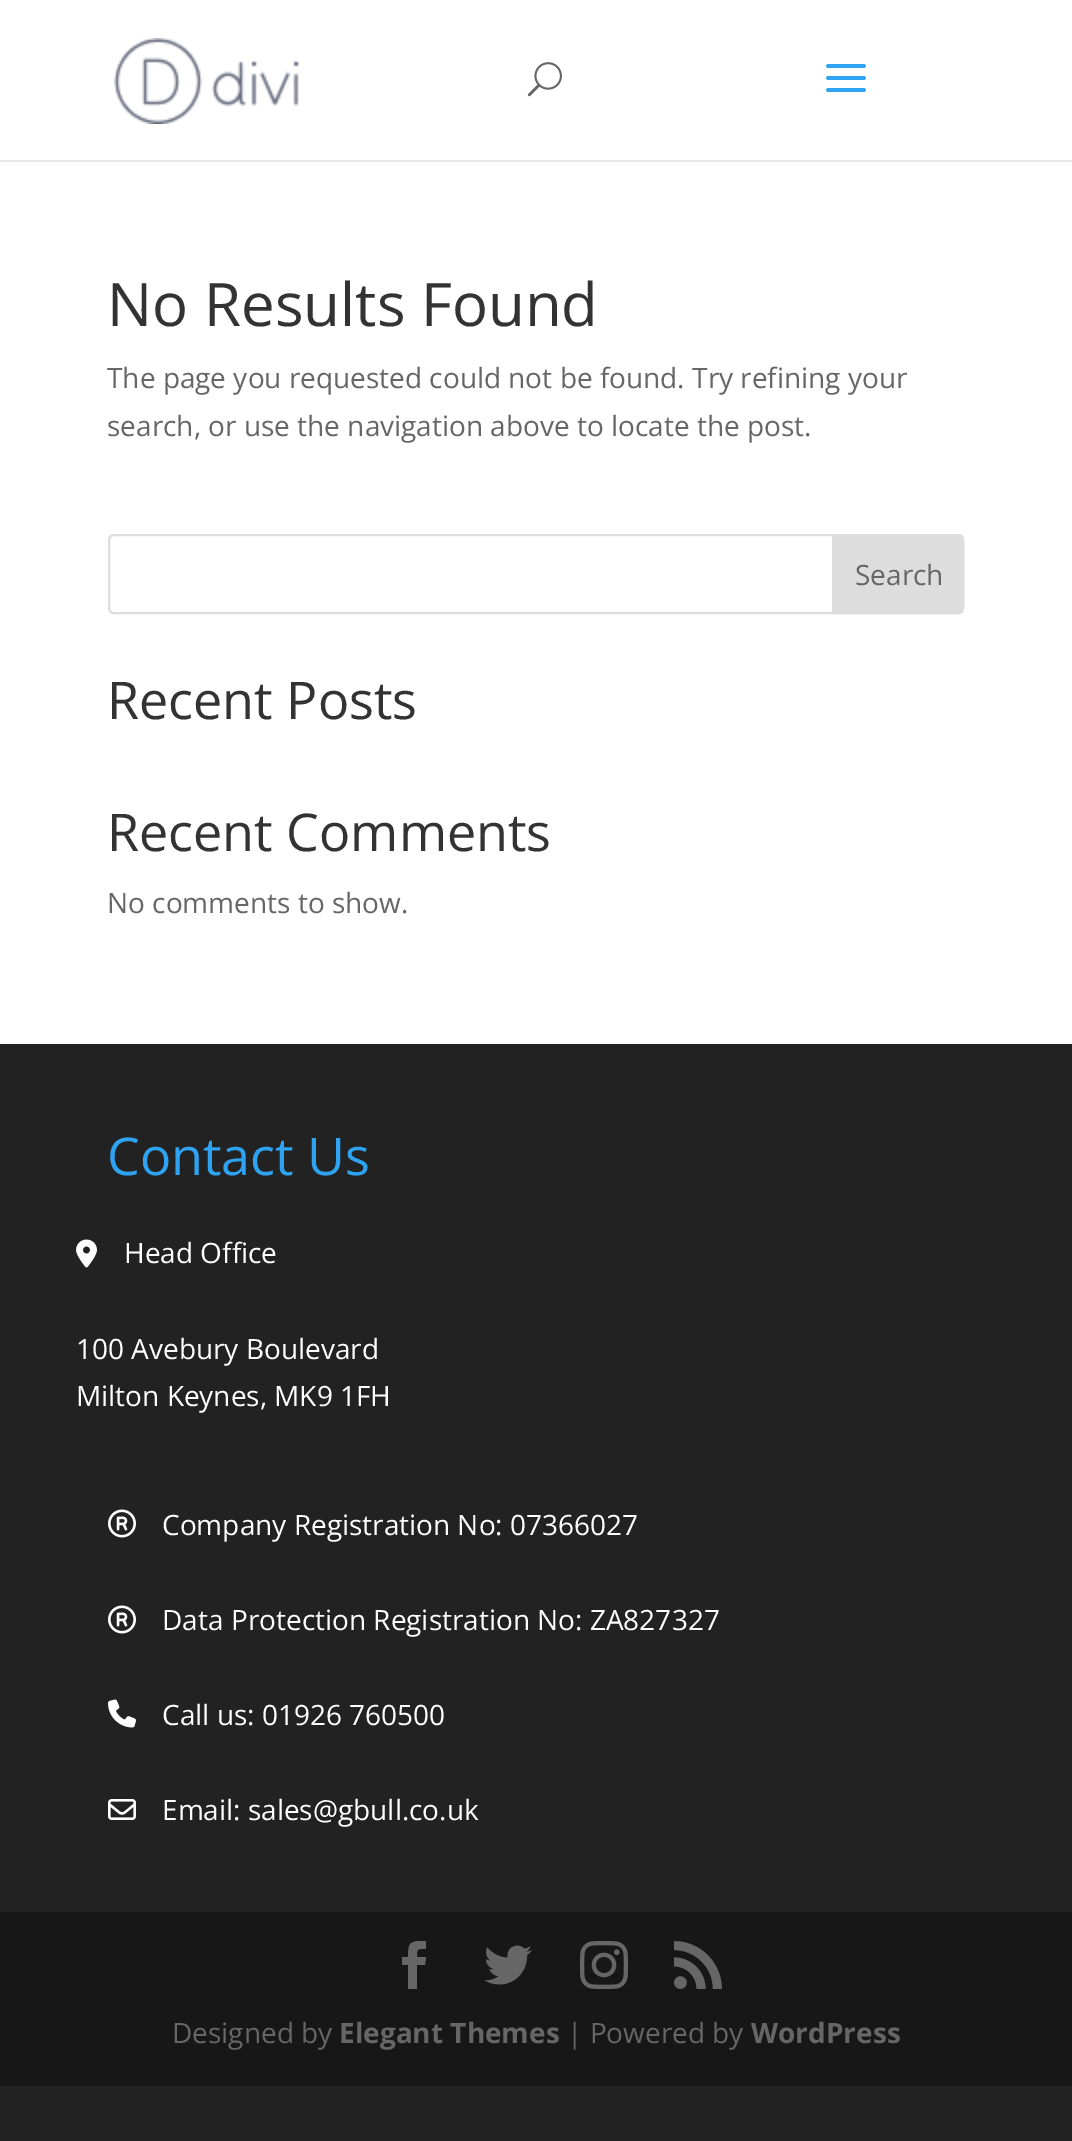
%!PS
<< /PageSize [1072 2141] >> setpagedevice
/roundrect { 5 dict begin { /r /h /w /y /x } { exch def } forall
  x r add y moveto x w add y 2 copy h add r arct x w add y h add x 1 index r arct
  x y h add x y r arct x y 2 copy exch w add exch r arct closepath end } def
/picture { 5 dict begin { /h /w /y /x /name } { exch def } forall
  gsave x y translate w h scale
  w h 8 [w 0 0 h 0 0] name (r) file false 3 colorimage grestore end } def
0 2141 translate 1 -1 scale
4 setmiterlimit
1 setgray
0 0 1072 2141 rectfill
0.902 setgray
0 160 1072 2 rectfill
(img1.rgb) 114 38 186 86 picture
(img2.rgb) 527 62 35 35 picture
(img3.rgb) 826 64 40 28 picture
/OpenSans-Regular [60 0 0 -60 0 0] selectfont
0.2 setgray
107 326 moveto (No Results Found) show
/OpenSans-Regular [28 0 0 -28 0 0] selectfont
0.4 setgray
107 388 moveto (The page you requested could not be found. Try refining your) show
107 436 moveto (search, or use the navigation above to locate the post.) show
0.867 setgray
2 setlinewidth
109 535 854 78 5 roundrect stroke
newpath 833 535 moveto 958 535 lineto 961 535 963 537 963 540 curveto 963 608 lineto 963 611 961 613 958 613 curveto 833 613 lineto closepath gsave fill grestore
stroke
0.4 setgray
855 585 moveto (Search) show
/OpenSans-Regular [52 0 0 -52 0 0] selectfont
0.2 setgray
107 719 moveto (Recent Posts) show
107 851 moveto (Recent Comments) show
/OpenSans-Regular [28 0 0 -28 0 0] selectfont
0.4 setgray
107 913 moveto (No comments to show.) show
0.133 setgray
0 1044 1072 1097 rectfill
/OpenSans-Regular [52 0 0 -52 0 0] selectfont
0.18 0.639 0.949 setrgbcolor
107 1175 moveto (Contact Us) show
(img4.rgb) 76 1239 21 29 picture
/OpenSans-Regular [28 0 0 -28 0 0] selectfont
1 setgray
124 1263 moveto (Head Office) show
76 1359 moveto (100 Avebury Boulevard) show
76 1406 moveto (Milton Keynes, MK9 1FH) show
(img5.rgb) 108 1509 28 29 picture
162 1535 moveto (Company Registration No: 07366027) show
(img5.rgb) 108 1605 28 29 picture
162 1630 moveto (Data Protection Registration No: ZA827327) show
(img6.rgb) 108 1699 28 29 picture
162 1725 moveto (Call us: 01926 760500) show
(img7.rgb) 108 1799 28 21 picture
162 1820 moveto (Email: sales@gbull.co.uk) show
0.09 setgray
0 1912 1072 174 rectfill
0.4 setgray
newpath 408 1989 moveto 417 1989 lineto 417 1965 lineto 425 1965 lineto 426 1957 lineto 417 1957 lineto 417 1948 417 1949 426 1949 curveto 426 1941 lineto 411 1941 408 1941 408 1957 curveto 402 1957 lineto 402 1965 lineto 408 1965 lineto closepath fill
(img8.rgb) 484 1945 48 40 picture
(img9.rgb) 580 1941 48 48 picture
(img10.rgb) 674 1941 48 48 picture
172 2043 moveto (Designed by) show
/OpenSans-Bold [28 0 0 -28 0 0] selectfont
339 2043 moveto (Elegant Themes) show
/OpenSans-Regular [28 0 0 -28 0 0] selectfont
567 2043 moveto (| Powered by) show
/OpenSans-Bold [28 0 0 -28 0 0] selectfont
751 2043 moveto (WordPress) show
showpage
